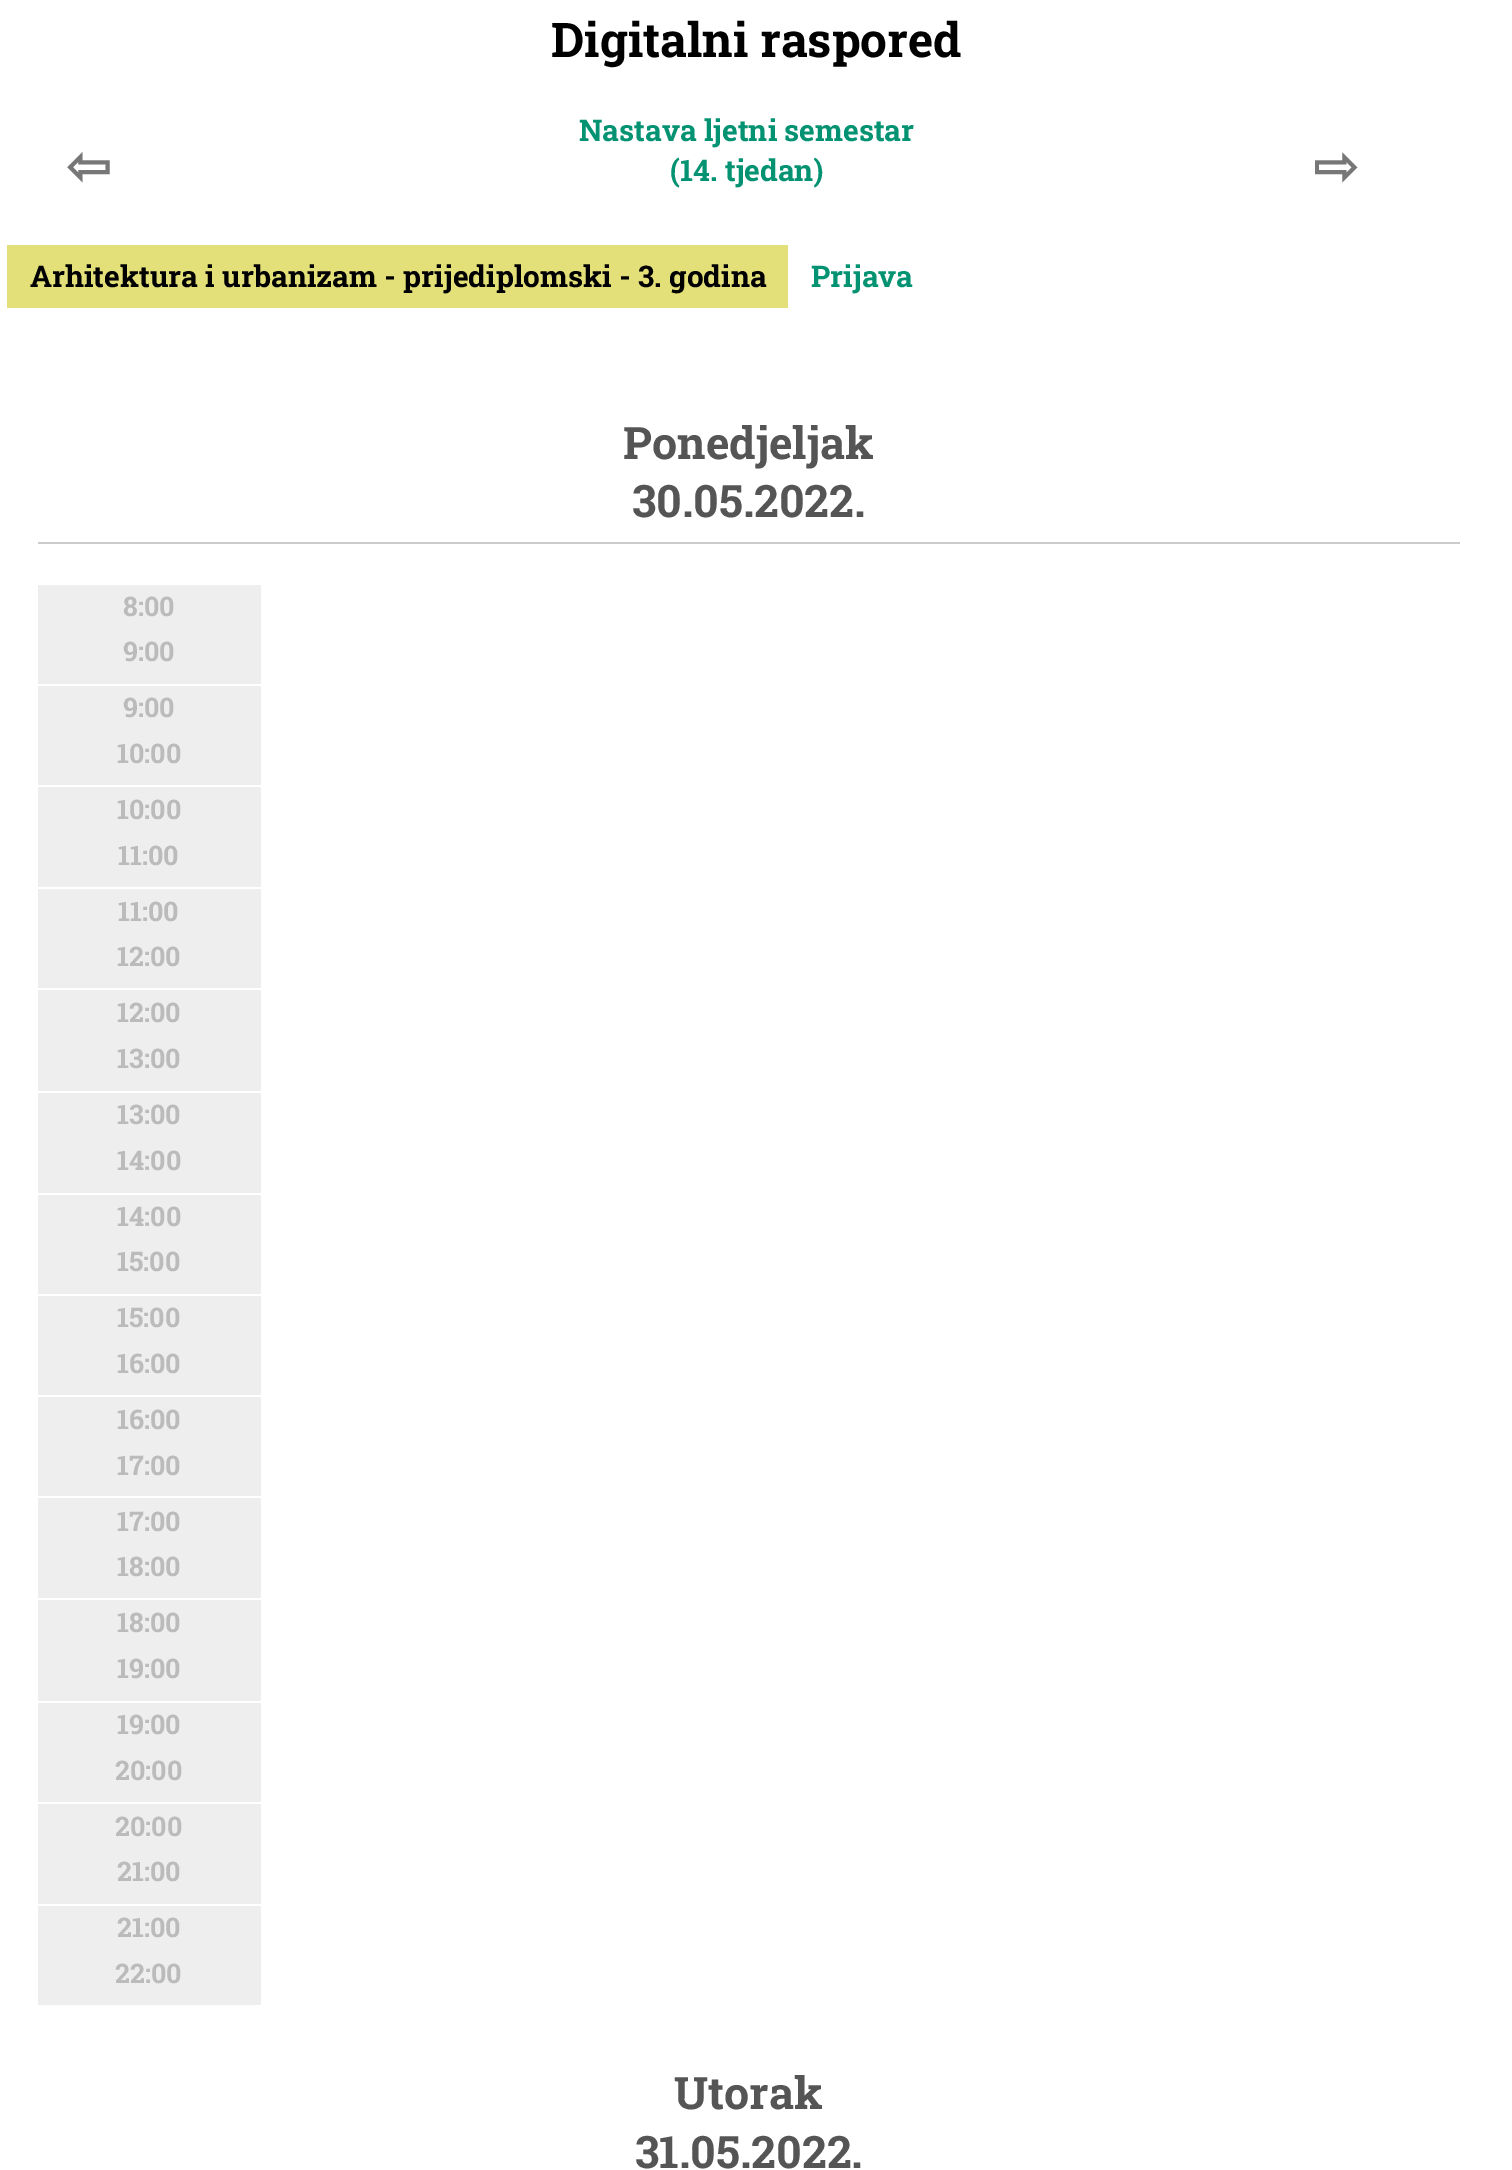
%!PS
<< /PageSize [1512 2170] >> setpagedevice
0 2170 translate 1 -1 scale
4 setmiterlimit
1 setgray
0 0 1512 2170 rectfill
/RobotoSlab-Bold [47.75 0 0 -47.75 0 0] selectfont
0 setgray
551 57 moveto (Digitalni raspored) show
/DejaVuSans-Bold [54 0 0 -54 0 0] selectfont
0.467 setgray
66 185 moveto (⇦) show
/RobotoSlab-Bold [29.8 0 0 -29.8 0 0] selectfont
0.016 0.576 0.447 setrgbcolor
579 141 moveto (Nastava ljetni semestar) show
670 181 moveto (\(14. tjedan\)) show
/DejaVuSans-Bold [54 0 0 -54 0 0] selectfont
0.467 setgray
1313 185 moveto (⇨) show
0.894 0.878 0.475 setrgbcolor
7 245 781 63 rectfill
/RobotoSlab-Bold [29.8 0 0 -29.8 0 0] selectfont
0 setgray
30 287 moveto (Arhitektura i urbanizam - prijediplomski) show
619 287 moveto (- 3. godina) show
0.016 0.576 0.447 setrgbcolor
811 287 moveto (Prijava) show
0.8 setgray
38 542 1422 2 rectfill
/RobotoSlab-Bold [44.75 0 0 -44.75 0 0] selectfont
0.333 setgray
623 459 moveto (Ponedjeljak) show
632 517 moveto (30.05.2022.) show
0.933 setgray
38 585 223 99 rectfill
/RobotoSlab-Bold [27 0 0 -27 0 0] selectfont
0.733 setgray
123 616 moveto (8:00) show
123 661 moveto (9:00) show
0.933 setgray
38 686 223 99 rectfill
0.733 setgray
123 717 moveto (9:00) show
117 763 moveto (10:00) show
0.933 setgray
38 787 223 100 rectfill
0.733 setgray
117 819 moveto (10:00) show
118 865 moveto (11:00) show
0.933 setgray
38 889 223 99 rectfill
0.733 setgray
118 921 moveto (11:00) show
117 966 moveto (12:00) show
0.933 setgray
38 990 223 101 rectfill
0.733 setgray
117 1022 moveto (12:00) show
117 1068 moveto (13:00) show
0.933 setgray
38 1093 223 100 rectfill
0.733 setgray
117 1124 moveto (13:00) show
117 1170 moveto (14:00) show
0.933 setgray
38 1195 223 99 rectfill
0.733 setgray
117 1226 moveto (14:00) show
117 1271 moveto (15:00) show
0.933 setgray
38 1296 223 99 rectfill
0.733 setgray
117 1327 moveto (15:00) show
117 1373 moveto (16:00) show
0.933 setgray
38 1397 223 99 rectfill
0.733 setgray
117 1429 moveto (16:00) show
117 1475 moveto (17:00) show
0.933 setgray
38 1498 223 100 rectfill
0.733 setgray
117 1531 moveto (17:00) show
117 1576 moveto (18:00) show
0.933 setgray
38 1600 223 101 rectfill
0.733 setgray
117 1632 moveto (18:00) show
117 1678 moveto (19:00) show
0.933 setgray
38 1703 223 99 rectfill
0.733 setgray
117 1734 moveto (19:00) show
115 1780 moveto (20:00) show
0.933 setgray
38 1804 223 100 rectfill
0.733 setgray
115 1836 moveto (20:00) show
117 1881 moveto (21:00) show
0.933 setgray
38 1906 223 99 rectfill
0.733 setgray
117 1937 moveto (21:00) show
115 1983 moveto (22:00) show
/RobotoSlab-Bold [44.75 0 0 -44.75 0 0] selectfont
0.333 setgray
674 2109 moveto (Utorak) show
635 2168 moveto (31.05.2022.) show
showpage
